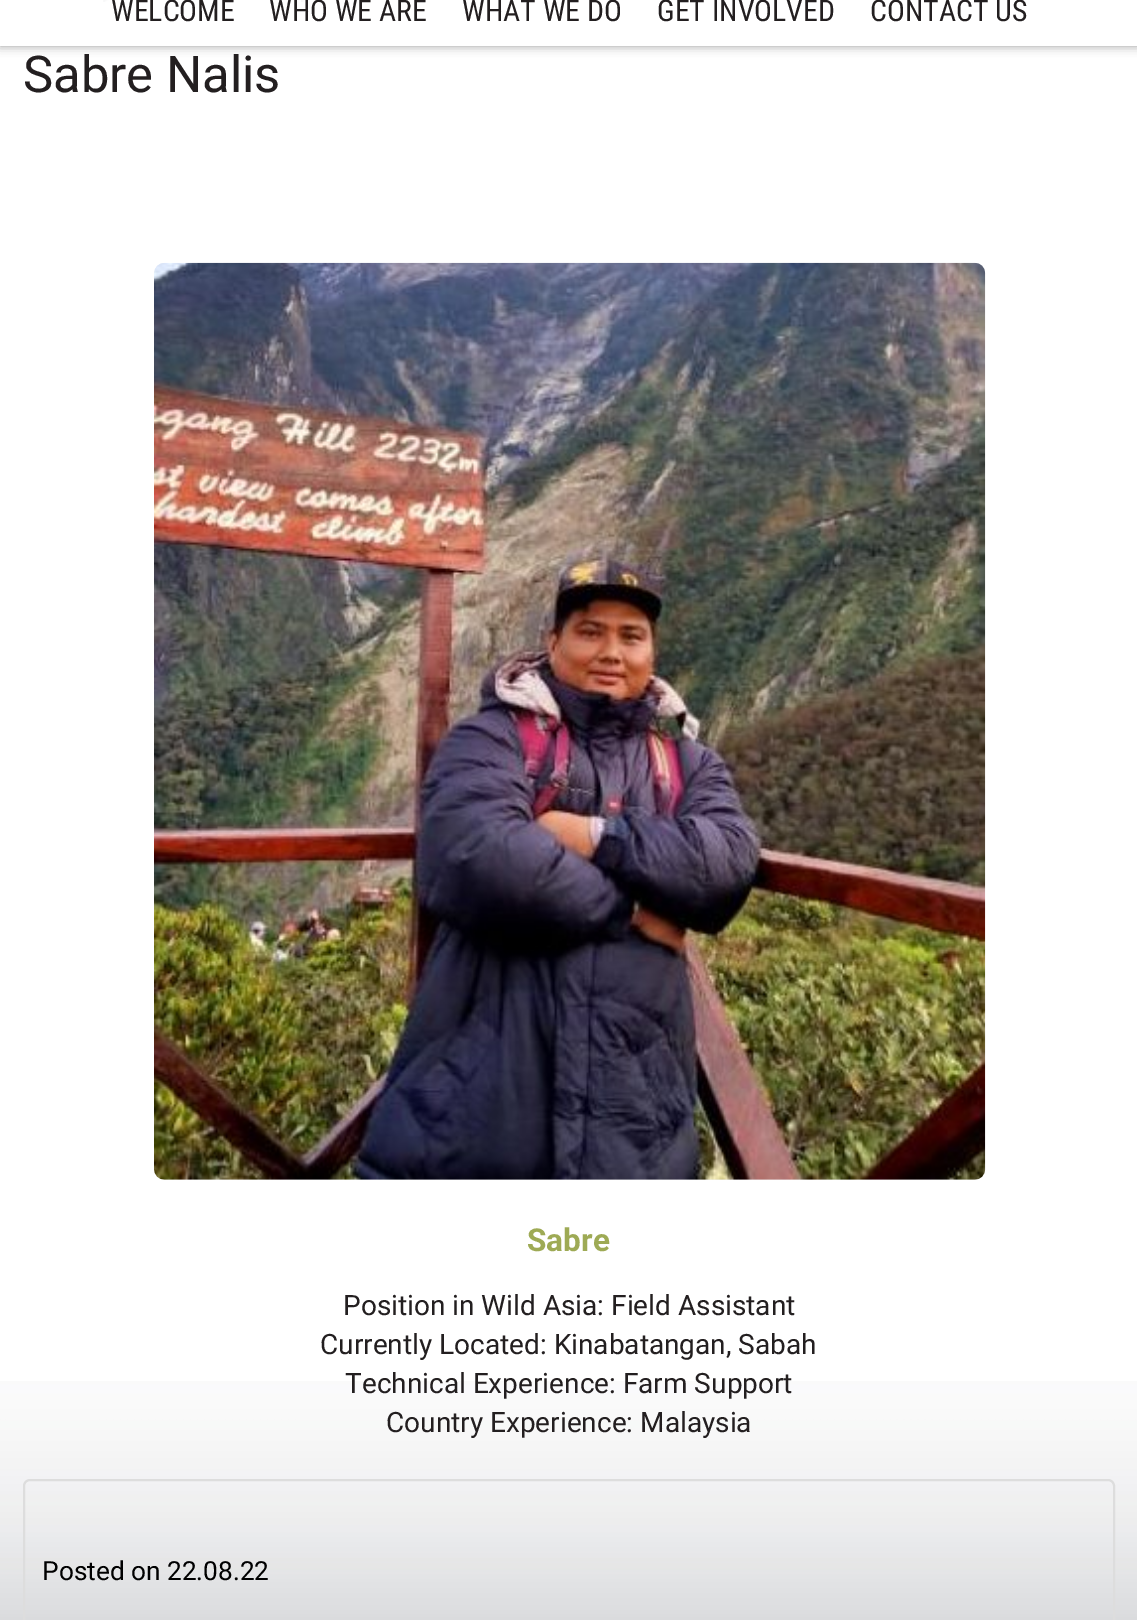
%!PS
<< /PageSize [1137 1620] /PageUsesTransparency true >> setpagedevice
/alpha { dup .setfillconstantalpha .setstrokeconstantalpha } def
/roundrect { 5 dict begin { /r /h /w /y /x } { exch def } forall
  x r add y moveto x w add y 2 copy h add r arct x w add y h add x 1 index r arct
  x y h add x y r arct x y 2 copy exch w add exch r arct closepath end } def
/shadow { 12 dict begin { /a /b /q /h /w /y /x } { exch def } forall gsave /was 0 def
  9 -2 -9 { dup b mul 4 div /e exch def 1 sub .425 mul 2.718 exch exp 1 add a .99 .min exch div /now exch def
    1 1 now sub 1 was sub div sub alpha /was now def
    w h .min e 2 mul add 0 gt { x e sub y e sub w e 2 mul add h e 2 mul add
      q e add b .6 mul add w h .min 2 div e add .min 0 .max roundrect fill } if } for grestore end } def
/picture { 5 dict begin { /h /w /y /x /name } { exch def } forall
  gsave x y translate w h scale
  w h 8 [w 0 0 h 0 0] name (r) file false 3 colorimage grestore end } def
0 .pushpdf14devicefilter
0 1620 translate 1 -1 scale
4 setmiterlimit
1 setgray
0 0 1137 1620 rectfill
(img2.rgb) 103 0 6 2 picture
(img3.rgb) 301 0 6 2 picture
gsave
newpath 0 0 moveto 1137 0 lineto 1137 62 lineto 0 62 lineto closepath 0 -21 moveto 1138 -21 lineto 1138 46 lineto 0 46 lineto closepath eoclip newpath
0.6 setgray
0 -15 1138 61 0 5 1 shadow
grestore
0.85 alpha
0 0 1137 46 rectfill
/RobotoCondensed-Regular [29.75 0 0 -29.75 0 0] selectfont
1 alpha
0.137 0.122 0.125 setrgbcolor
111 21 moveto (WELCOME) show
269 21 moveto (WHO WE ARE) show
462 21 moveto (WHAT WE DO) show
657 21 moveto (GET INVOLVED) show
870 21 moveto (CONTACT US) show
(img1.rgb) 0 1381 1137 239 picture
/Roboto-Regular [50.75 0 0 -50.75 0 0] selectfont
23 92 moveto (Sabre Nalis) show
0.941 0.941 0.945 setrgbcolor
154 263 831 917 11 roundrect fill
(img4.rgb) 154 262 832 918 picture
/Roboto-Bold [31.5 0 0 -31.5 0 0] selectfont
0.62 0.667 0.333 setrgbcolor
527 1251 moveto (Sabre) show
/Roboto-Regular [28 0 0 -28 0 0] selectfont
0.137 0.122 0.125 setrgbcolor
343 1315 moveto (Position in Wild Asia: Field Assistant) show
320 1354 moveto (Currently Located: Kinabatangan, Sabah) show
345 1393 moveto (Technical Experience: Farm Support) show
386 1432 moveto (Country Experience: Malaysia) show
0.867 setgray
2 setlinewidth
24 1480 1090 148 6 roundrect stroke
/Roboto-Regular [26.25 0 0 -26.25 0 0] selectfont
0 setgray
42 1580 moveto (Posted on 22.08.22) show
.poppdf14devicefilter showpage
